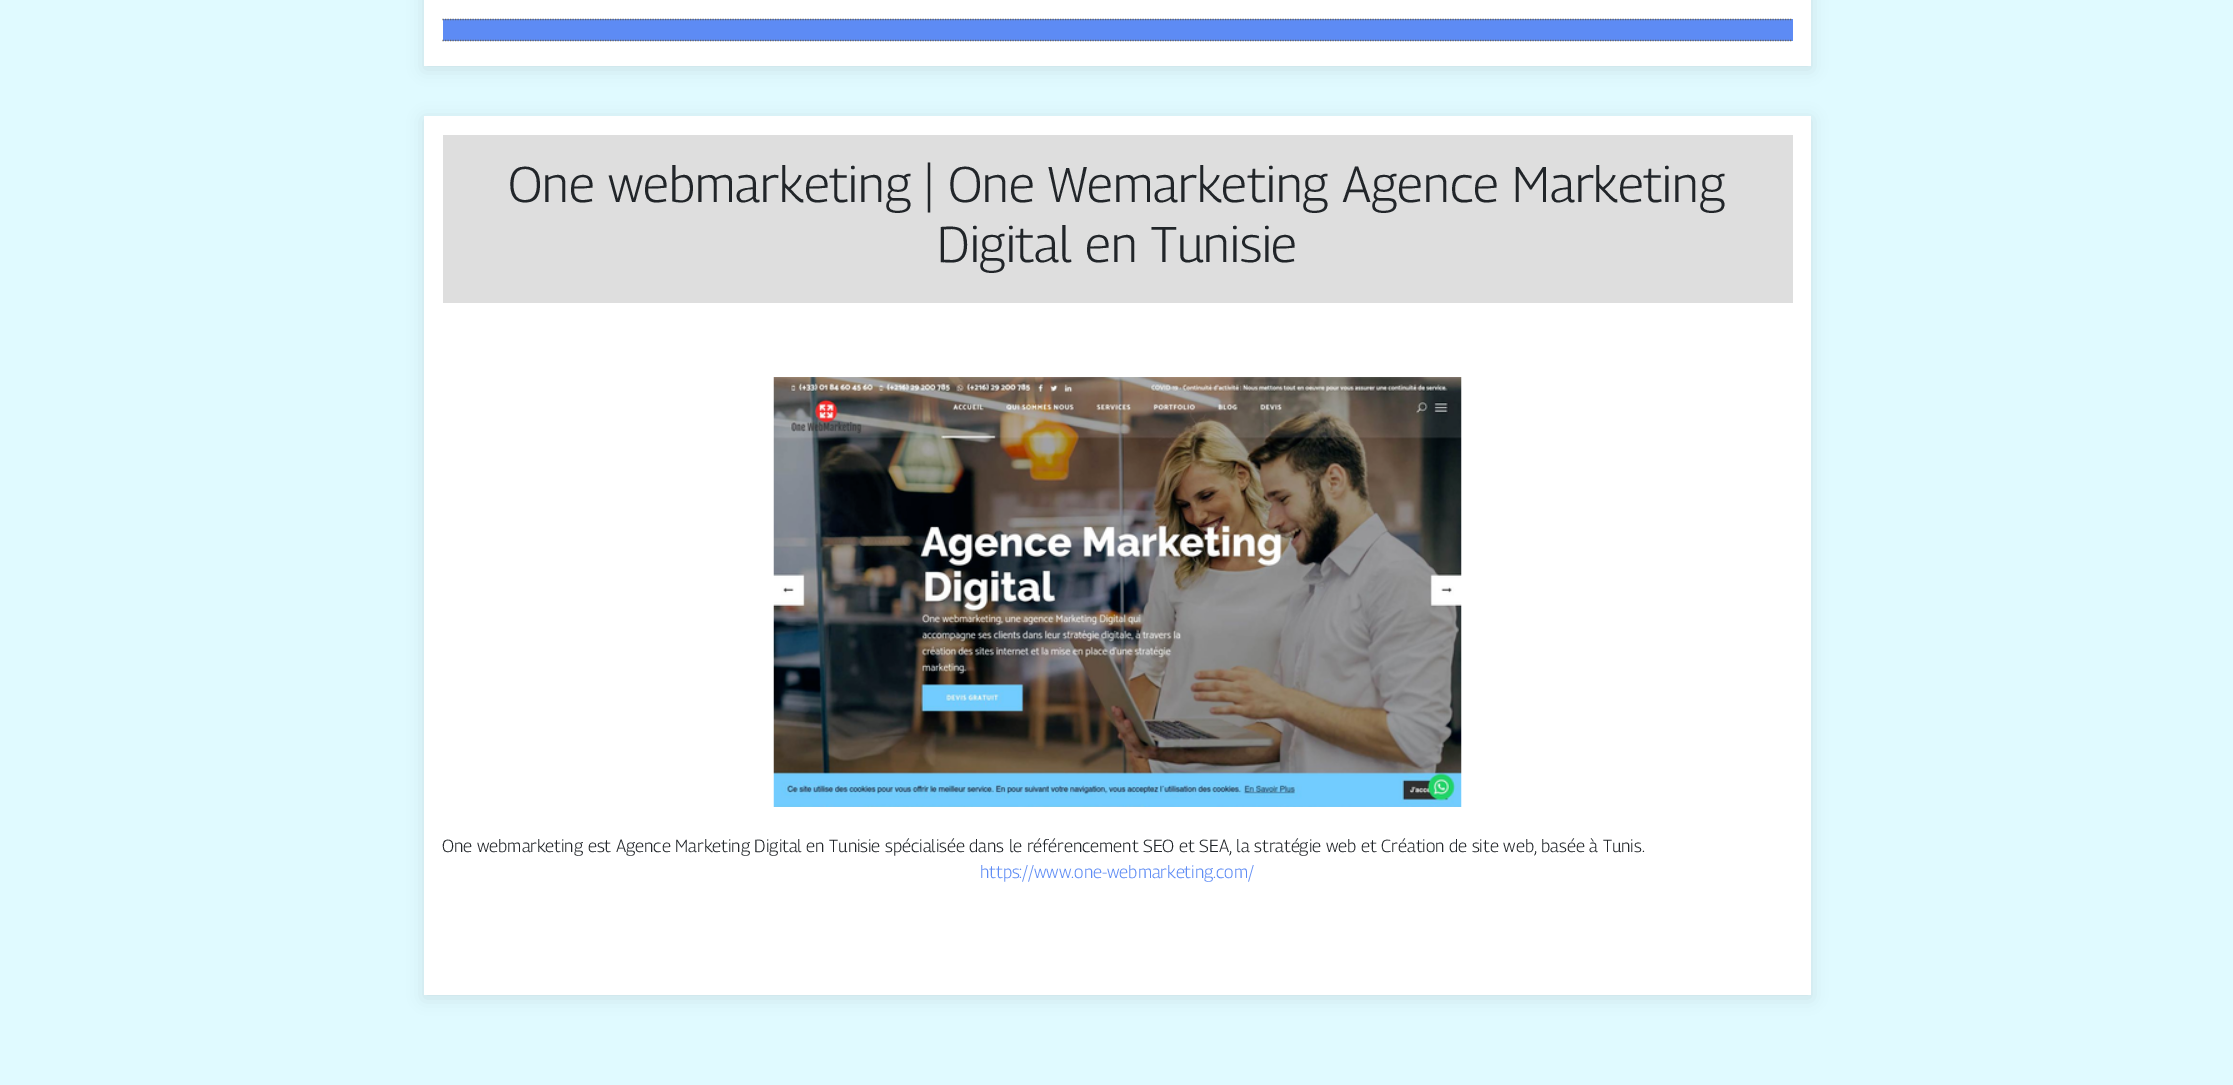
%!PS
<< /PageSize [2233 1085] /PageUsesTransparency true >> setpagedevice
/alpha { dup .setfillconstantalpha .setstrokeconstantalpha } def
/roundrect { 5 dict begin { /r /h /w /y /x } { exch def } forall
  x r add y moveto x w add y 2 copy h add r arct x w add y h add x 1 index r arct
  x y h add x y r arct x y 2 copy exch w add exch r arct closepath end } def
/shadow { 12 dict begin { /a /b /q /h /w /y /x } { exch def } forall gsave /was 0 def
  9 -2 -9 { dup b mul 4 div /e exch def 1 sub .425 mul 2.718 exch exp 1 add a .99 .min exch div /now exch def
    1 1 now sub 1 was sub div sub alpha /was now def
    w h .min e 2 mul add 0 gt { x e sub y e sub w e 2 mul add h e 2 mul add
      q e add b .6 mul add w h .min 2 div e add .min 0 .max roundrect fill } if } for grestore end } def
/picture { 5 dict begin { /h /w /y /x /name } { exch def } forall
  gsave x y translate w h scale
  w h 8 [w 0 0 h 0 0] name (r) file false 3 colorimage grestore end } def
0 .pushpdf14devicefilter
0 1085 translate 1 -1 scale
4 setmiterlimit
0.878 0.98 1 setrgbcolor
0 0 2233 1085 rectfill
0 setgray
424 -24 1387 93 0 8 0.1 shadow
1 setgray
424 0 1387 66 rectfill
0.365 0.545 0.957 setrgbcolor
443 19 1350 22 rectfill
0.4 setgray
1.2 setlinewidth
[1.25 1.25] 0 setdash
newpath 442.5 19.5 moveto 1792.5 19.5 lineto stroke
newpath 442.5 40.5 moveto 1792.5 40.5 lineto stroke
0 setgray
424 119 1387 879 0 8 0.1 shadow
1 setgray
424 116 1387 879 rectfill
0.871 setgray
443 135 1350 168 rectfill
/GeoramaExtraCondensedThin-Thin [50 0 0 -50 0 0] selectfont
0.129 0.145 0.161 setrgbcolor
508 202 moveto (One webmarketing | One Wemarketing Agence Marketing) show
937 262 moveto (Digital en Tunisie) show
(img1.rgb) 773 377 689 430 picture
/GeoramaExtraCondensedThin-Thin [17.5 0 0 -17.5 0 0] selectfont
442 852 moveto (One webmarketing est Agence Marketing Digital en Tunisie spécialisée dans le référencement SEO et SEA, la stratégie web et Création de site web, basée à Tunis.) show
0.365 0.545 0.957 setrgbcolor
980 878 moveto (https://www.one-webmarketing.com/) show
.poppdf14devicefilter showpage
